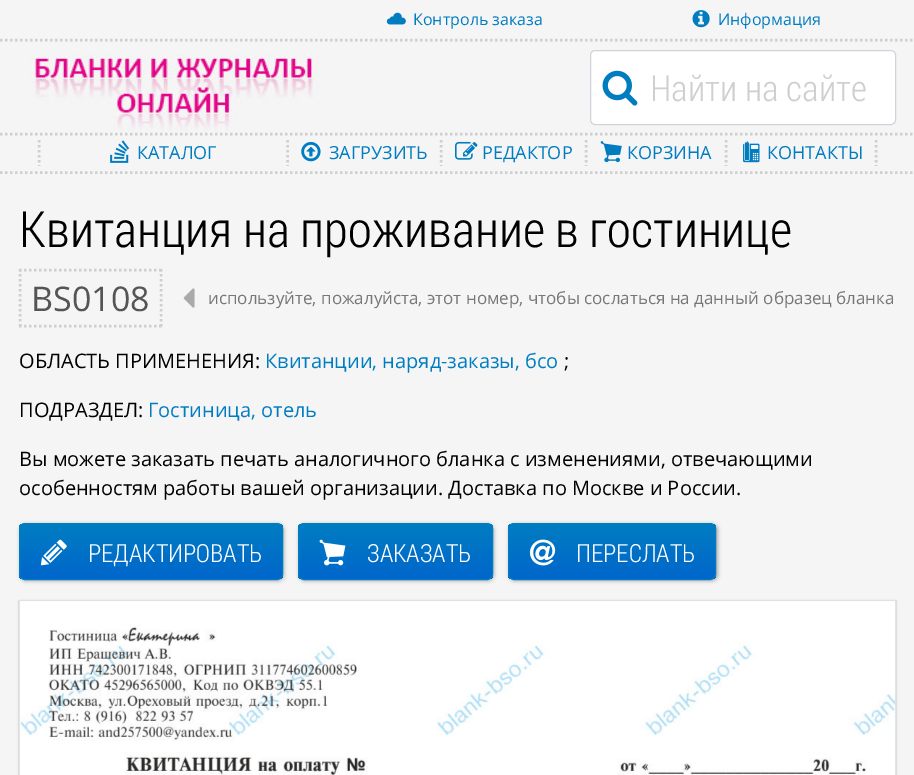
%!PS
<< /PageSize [914 775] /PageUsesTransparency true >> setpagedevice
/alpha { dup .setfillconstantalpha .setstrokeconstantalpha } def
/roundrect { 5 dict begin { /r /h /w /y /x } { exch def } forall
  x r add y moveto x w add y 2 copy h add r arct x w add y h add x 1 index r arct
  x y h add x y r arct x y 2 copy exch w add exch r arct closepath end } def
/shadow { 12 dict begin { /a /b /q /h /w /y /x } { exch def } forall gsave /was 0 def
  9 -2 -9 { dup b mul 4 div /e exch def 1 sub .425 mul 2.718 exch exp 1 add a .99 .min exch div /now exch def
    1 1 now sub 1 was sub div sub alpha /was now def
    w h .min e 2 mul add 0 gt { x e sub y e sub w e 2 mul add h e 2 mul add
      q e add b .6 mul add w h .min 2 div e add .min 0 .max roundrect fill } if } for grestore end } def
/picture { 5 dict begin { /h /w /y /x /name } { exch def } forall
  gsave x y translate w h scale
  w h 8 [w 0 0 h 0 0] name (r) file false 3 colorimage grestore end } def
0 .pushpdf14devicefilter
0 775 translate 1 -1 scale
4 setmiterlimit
0.961 setgray
0 0 914 775 rectfill
0.812 setgray
2.5 setlinewidth
[2.5 2.5] 0 setdash
newpath 0 40 moveto 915 40 lineto stroke
(img1.rgb) 386 12 20 13 picture
/OpenSans-Regular [16 0 0 -16 0 0] selectfont
0 0.49 0.757 setrgbcolor
413 25 moveto (Контроль заказа) show
(img2.rgb) 692 10 18 18 picture
718 25 moveto (Информация) show
0.812 setgray
newpath 0 134 moveto 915 134 lineto stroke
(img3.rgb) 28 54 291 77 picture
1 setgray
590.5 50.5 305 74 4.5 roundrect gsave fill grestore
0.808 0.831 0.855 setrgbcolor
1 setlinewidth
[] 0 setdash
stroke
(img4.rgb) 602 70 36 36 picture
/RobotoCondensed-Light [36 0 0 -36 0 0] selectfont
0.812 setgray
650 101 moveto (Найти на сайте) show
2.5 setlinewidth
[2.5 2.5] 0 setdash
newpath 0 172.5 moveto 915 172.5 lineto stroke
newpath 287.5 140 moveto 287.5 166 lineto stroke
newpath 39 140 moveto 39 166 lineto stroke
(img5.rgb) 110 140 20 23 picture
/OpenSans-Regular [18 0 0 -18 0 0] selectfont
0 0.49 0.757 setrgbcolor
137 159 moveto (КАТАЛОГ) show
0.812 setgray
newpath 441 140 moveto 441 166 lineto stroke
(img6.rgb) 301 141 20 21 picture
0 0.49 0.757 setrgbcolor
329 159 moveto (ЗАГРУЗИТЬ) show
0.812 setgray
newpath 586 140 moveto 586 166 lineto stroke
(img7.rgb) 455 141 23 19 picture
0 0.49 0.757 setrgbcolor
482 159 moveto (РЕДАКТОР) show
0.812 setgray
newpath 726 140 moveto 726 166 lineto stroke
(img8.rgb) 600 141 22 22 picture
0 0.49 0.757 setrgbcolor
627 159 moveto (КОРЗИНА) show
0.812 setgray
newpath 876 140 moveto 876 166 lineto stroke
(img9.rgb) 743 141 17 22 picture
0 0.49 0.757 setrgbcolor
767 159 moveto (КОНТАКТЫ) show
/RobotoCondensed-Light [50 0 0 -50 0 0] selectfont
0 setgray
19 247 moveto (Квитанция на проживание в гостинице) show
0.812 setgray
newpath 19 270 moveto 162.5 270 lineto stroke
newpath 161 269 moveto 161 327.5 lineto stroke
newpath 19 326 moveto 162.5 326 lineto stroke
newpath 20 269 moveto 20 327.5 lineto stroke
/OpenSans-Regular [34 0 0 -34 0 0] selectfont
0.333 setgray
31 311 moveto (BS0108) show
(img10.rgb) 183 288 12 20 picture
/OpenSans-Regular [17 0 0 -17 0 0] selectfont
0.467 setgray
208 304 moveto (используйте, пожалуйста, этот номер, чтобы сослаться на данный образец) show
836 304 moveto (бланка) show
/OpenSans-Regular [20 0 0 -20 0 0] selectfont
0 setgray
19 368 moveto (ОБЛАСТЬ ПРИМЕНЕНИЯ:) show
0 0.49 0.757 setrgbcolor
265 368 moveto (Квитанции, наряд-заказы, бсо) show
0 setgray
564 368 moveto (;) show
19 417 moveto (ПОДРАЗДЕЛ:) show
0 0.49 0.757 setrgbcolor
148 417 moveto (Гостиница, отель) show
0 setgray
19 466 moveto (Вы можете заказать печать аналогичного бланка с изменениями, отвечающими) show
19 495 moveto (особенностям работы вашей организации. Доставка по Москве и России.) show
0.678 0.671 0.678 setrgbcolor
20 524 264 57 6 2 1 shadow
gsave
19 523 264 57 6 roundrect clip newpath
gsave newpath 19 524 moveto 283 524 lineto 283 579 lineto 19 579 lineto closepath clip newpath
<< /ShadingType 2 /ColorSpace /DeviceRGB /Coords [151 524 151 579] /Extend [true true] /Function << /FunctionType 2 /Domain [0 1] /C0 [0 0.49 0.757] /C1 [0 0.4 0.8] /N 1 >> >> shfill grestore
grestore
0 0.49 0.757 setrgbcolor
1 setlinewidth
[] 0 setdash
19.5 523.5 263 56 5.5 roundrect stroke
(img11.rgb) 40 539 27 27 picture
/RobotoCondensed-Light [25 0 0 -25 0 0] selectfont
1 setgray
88 562 moveto (РЕДАКТИРОВАТЬ) show
0.678 0.671 0.678 setrgbcolor
299 524 195 57 6 2 1 shadow
gsave
298 523 195 57 6 roundrect clip newpath
gsave newpath 298 524 moveto 493 524 lineto 493 579 lineto 298 579 lineto closepath clip newpath
<< /ShadingType 2 /ColorSpace /DeviceRGB /Coords [395 524 395 579] /Extend [true true] /Function << /FunctionType 2 /Domain [0 1] /C0 [0 0.49 0.757] /C1 [0 0.4 0.8] /N 1 >> >> shfill grestore
grestore
0 0.49 0.757 setrgbcolor
298.5 523.5 194 56 5.5 roundrect stroke
(img12.rgb) 319 539 27 27 picture
1 setgray
367 562 moveto (ЗАКАЗАТЬ) show
0.678 0.671 0.678 setrgbcolor
509 524 209 57 6 2 1 shadow
gsave
508 523 208 57 6 roundrect clip newpath
gsave newpath 508 524 moveto 716 524 lineto 716 579 lineto 508 579 lineto closepath clip newpath
<< /ShadingType 2 /ColorSpace /DeviceRGB /Coords [612 524 612 579] /Extend [true true] /Function << /FunctionType 2 /Domain [0 1] /C0 [0 0.49 0.757] /C1 [0 0.4 0.8] /N 1 >> >> shfill grestore
grestore
0 0.49 0.757 setrgbcolor
508.5 523.5 207 56 5.5 roundrect stroke
(img13.rgb) 529 539 27 27 picture
1 setgray
576 562 moveto (ПЕРЕСЛАТЬ) show
0 setgray
19 601 877 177 0 1 0.3 shadow
0.871 0.886 0.902 setrgbcolor
19.5 600.5 876 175 rectstroke
(img14.rgb) 19 601 877 174 picture
.poppdf14devicefilter showpage
